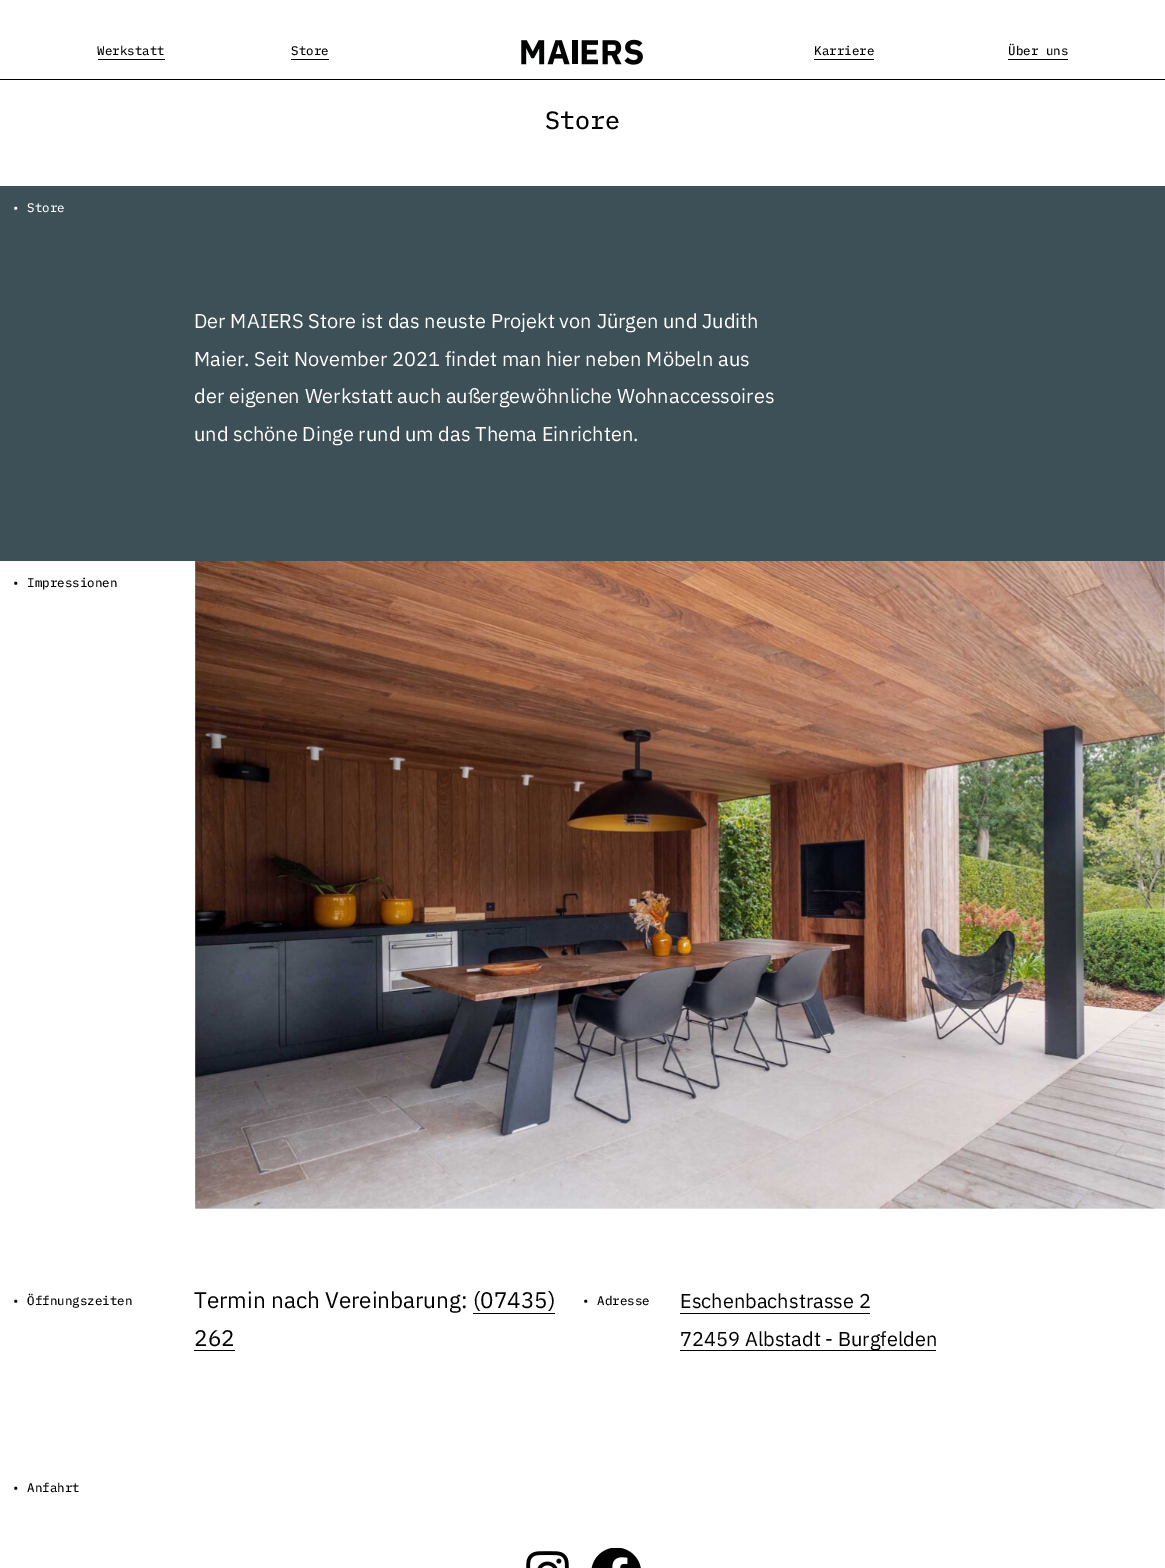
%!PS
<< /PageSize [1165 1568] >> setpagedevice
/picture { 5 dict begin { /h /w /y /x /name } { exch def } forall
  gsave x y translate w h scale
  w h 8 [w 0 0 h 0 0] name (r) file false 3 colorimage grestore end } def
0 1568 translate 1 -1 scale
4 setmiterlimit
1 setgray
0 0 1165 1568 rectfill
/IBMPlexMono-Regular [12.5 0 0 -12.5 0 0] selectfont
0 setgray
97 55 moveto (Werkstatt) show
98 59 67 1 rectfill
291 55 moveto (Store) show
291 59 38 1 rectfill
(img1.rgb) 521 39 122 26 picture
814 55 moveto (Karriere) show
814 59 60 1 rectfill
1008 55 moveto (Über uns) show
1008 59 60 1 rectfill
0 79 1165 1 rectfill
/IBMPlexMono-Regular [25 0 0 -25 0 0] selectfont
545 129 moveto (Store) show
0.239 0.31 0.341 setrgbcolor
0 186 1165 375 rectfill
/IBMPlexMono-Regular [12.5 0 0 -12.5 0 0] selectfont
1 setgray
12 212 moveto (• Store) show
/IBMPlexSans-Regular [20 0 0 -20 0 0] selectfont
194 328 moveto (Der MAIERS Store ist das neuste Projekt von Jürgen und Judith) show
194 366 moveto (Maier. Seit November 2021 findet man hier neben Möbeln aus) show
194 403 moveto (der eigenen Werkstatt auch außergewöhnliche Wohnaccessoires) show
194 441 moveto (und schöne Dinge rund um das Thema Einrichten.) show
/IBMPlexMono-Regular [12.5 0 0 -12.5 0 0] selectfont
0 setgray
12 587 moveto (• Impressionen) show
(img2.rgb) 195 561 970 648 picture
12 1305 moveto (• Öffnungszeiten) show
/IBMPlexSans-Regular [22.5 0 0 -22.5 0 0] selectfont
194 1308 moveto (Termin nach Vereinbarung: \(07435\)) show
473 1313 82 1 rectfill
194 1346 moveto (262) show
194 1350 41 1 rectfill
/IBMPlexMono-Regular [12.5 0 0 -12.5 0 0] selectfont
582 1305 moveto (• Adresse) show
/IBMPlexSans-Regular [20 0 0 -20 0 0] selectfont
680 1308 moveto (Eschenbachstrasse 2) show
680 1313 190 1 rectfill
680 1350 256 1 rectfill
680 1346 moveto (72459 Albstadt - Burgfelden) show
/IBMPlexMono-Regular [12.5 0 0 -12.5 0 0] selectfont
12 1492 moveto (• Anfahrt) show
(img3.rgb) 526 1551 43 17 picture
(img4.rgb) 591 1548 50 20 picture
showpage
